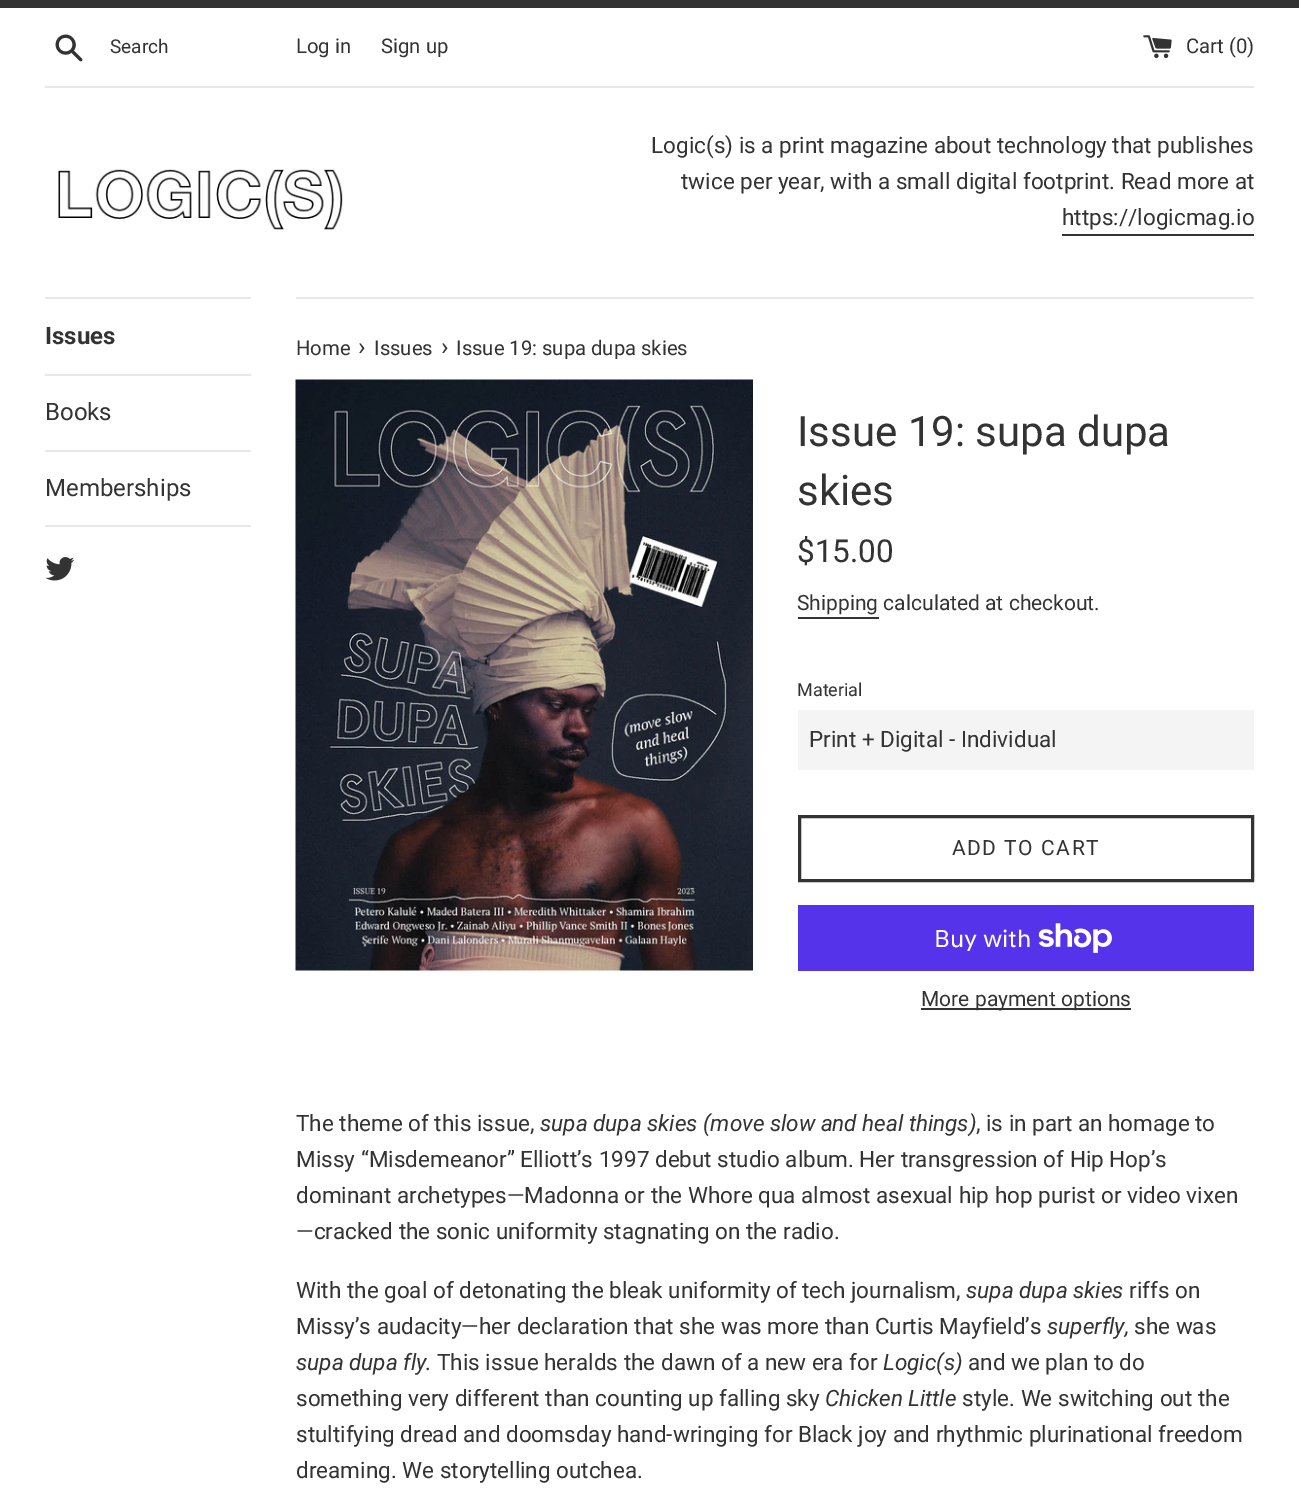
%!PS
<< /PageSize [1299 1492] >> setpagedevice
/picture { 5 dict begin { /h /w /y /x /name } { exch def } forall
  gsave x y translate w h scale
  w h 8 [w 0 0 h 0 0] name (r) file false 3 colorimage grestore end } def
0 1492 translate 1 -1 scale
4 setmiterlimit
1 setgray
0 0 1299 1492 rectfill
0.2 setgray
0 0 1299 8 rectfill
(img1.rgb) 55 34 28 28 picture
/Roboto-Regular [19 0 0 -19 0 0] selectfont
110 53 moveto (Search) show
/Roboto-Regular [20.25 0 0 -20.25 0 0] selectfont
296 53 moveto (Log in) show
381 53 moveto (Sign up) show
(img2.rgb) 1143 35 29 24 picture
1186 53 moveto (Cart \(0\)) show
0.91 setgray
45 86 1209 2 rectfill
(img3.rgb) 58 169 285 61 picture
/Roboto-Regular [22.5 0 0 -22.5 0 0] selectfont
0.2 setgray
651 153 moveto (Logic\(s\) is a print magazine about technology that publishes) show
681 189 moveto (twice per year, with a small digital footprint. Read more at) show
1062 225 moveto (https://logicmag.io) show
1062 234 192 2 rectfill
0.91 setgray
45 297 206 2 rectfill
45 374 206 2 rectfill
/Roboto-Bold [24 0 0 -24 0 0] selectfont
0.2 setgray
45 344 moveto (Issues) show
0.91 setgray
45 450 206 2 rectfill
/Roboto-Regular [24 0 0 -24 0 0] selectfont
0.2 setgray
45 420 moveto (Books) show
0.91 setgray
45 525 206 2 rectfill
0.2 setgray
45 496 moveto (Memberships) show
(img4.rgb) 45 557 30 24 picture
0.91 setgray
296 297 958 2 rectfill
/Roboto-Regular [20.25 0 0 -20.25 0 0] selectfont
0.2 setgray
296 355 moveto (Home) show
/Roboto-Regular [25 0 0 -25 0 0] selectfont
358 355 moveto (›) show
/Roboto-Regular [20.25 0 0 -20.25 0 0] selectfont
374 355 moveto (Issues) show
/Roboto-Regular [25 0 0 -25 0 0] selectfont
441 355 moveto (›) show
/Roboto-Regular [20.25 0 0 -20.25 0 0] selectfont
456 355 moveto (Issue 19: supa dupa skies) show
(img5.rgb) 295 379 458 592 picture
/Roboto-Regular [42 0 0 -42 0 0] selectfont
797 446 moveto (Issue 19: supa dupa) show
797 505 moveto (skies) show
/Roboto-Regular [31.5 0 0 -31.5 0 0] selectfont
797 562 moveto ($15.00) show
/Roboto-Regular [21 0 0 -21 0 0] selectfont
797 610 moveto (Shipping calculated at checkout.) show
798 617 81 2 rectfill
/Roboto-Regular [18 0 0 -18 0 0] selectfont
797 696 moveto (Material) show
0.957 setgray
798 710 456 60 rectfill
/Roboto-Regular [22.5 0 0 -22.5 0 0] selectfont
0.2 setgray
809 747 moveto (Print + Digital - Individual) show
3 setlinewidth
799.5 816.5 453 64 rectstroke
/Roboto-Regular [21 0 0 -21 0 0] selectfont
952 855 moveto 1.5 0 (ADD TO CART) ashow
0.329 0.2 0.922 setrgbcolor
798 905 456 66 rectfill
/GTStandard-Regular [24 0 0 -24 0 0] selectfont
1 setgray
934 947 moveto (Buy with) show
(img6.rgb) 1038 923 74 30 picture
0.2 setgray
921 1008 210 2 rectfill
/Roboto-Regular [21 0 0 -21 0 0] selectfont
921 1006 moveto (More payment options) show
/Roboto-Regular [22.5 0 0 -22.5 0 0] selectfont
296 1131 moveto (The theme of this issue,) show
/Roboto-Italic [22.5 0 0 -22.5 0 0] selectfont
540 1131 moveto (supa dupa skies \(move slow and heal things\)) show
/Roboto-Regular [22.5 0 0 -22.5 0 0] selectfont
976 1131 moveto (, is in part an homage to) show
296 1167 moveto (Missy “Misdemeanor” Elliott’s 1997 debut studio album. Her transgression of Hip Hop’s) show
296 1203 moveto (dominant archetypes—Madonna or the Whore qua almost asexual hip hop purist or video vixen) show
296 1239 moveto (—cracked the sonic uniformity stagnating on the radio.) show
296 1298 moveto (With the goal of detonating the bleak uniformity of tech journalism,) show
/Roboto-Italic [22.5 0 0 -22.5 0 0] selectfont
966 1298 moveto (supa dupa skies) show
/Roboto-Regular [22.5 0 0 -22.5 0 0] selectfont
1129 1298 moveto (riffs on) show
296 1334 moveto (Missy’s audacity—her declaration that she was more than Curtis Mayfield’s) show
/Roboto-Italic [22.5 0 0 -22.5 0 0] selectfont
1047 1334 moveto (superfly,) show
/Roboto-Regular [22.5 0 0 -22.5 0 0] selectfont
1134 1334 moveto (she was) show
/Roboto-Italic [22.5 0 0 -22.5 0 0] selectfont
296 1370 moveto (supa dupa fly.) show
/Roboto-Regular [22.5 0 0 -22.5 0 0] selectfont
437 1370 moveto (This issue heralds the dawn of a new era for) show
/Roboto-Italic [22.5 0 0 -22.5 0 0] selectfont
883 1370 moveto (Logic\(s\)) show
/Roboto-Regular [22.5 0 0 -22.5 0 0] selectfont
968 1370 moveto (and we plan to do) show
296 1406 moveto (something very different than counting up falling sky) show
/Roboto-Italic [22.5 0 0 -22.5 0 0] selectfont
825 1406 moveto (Chicken Little) show
/Roboto-Regular [22.5 0 0 -22.5 0 0] selectfont
962 1406 moveto (style. We switching out the) show
296 1442 moveto (stultifying dread and doomsday hand-wringing for Black joy and rhythmic plurinational freedom) show
296 1478 moveto (dreaming. We storytelling outchea.) show
showpage
